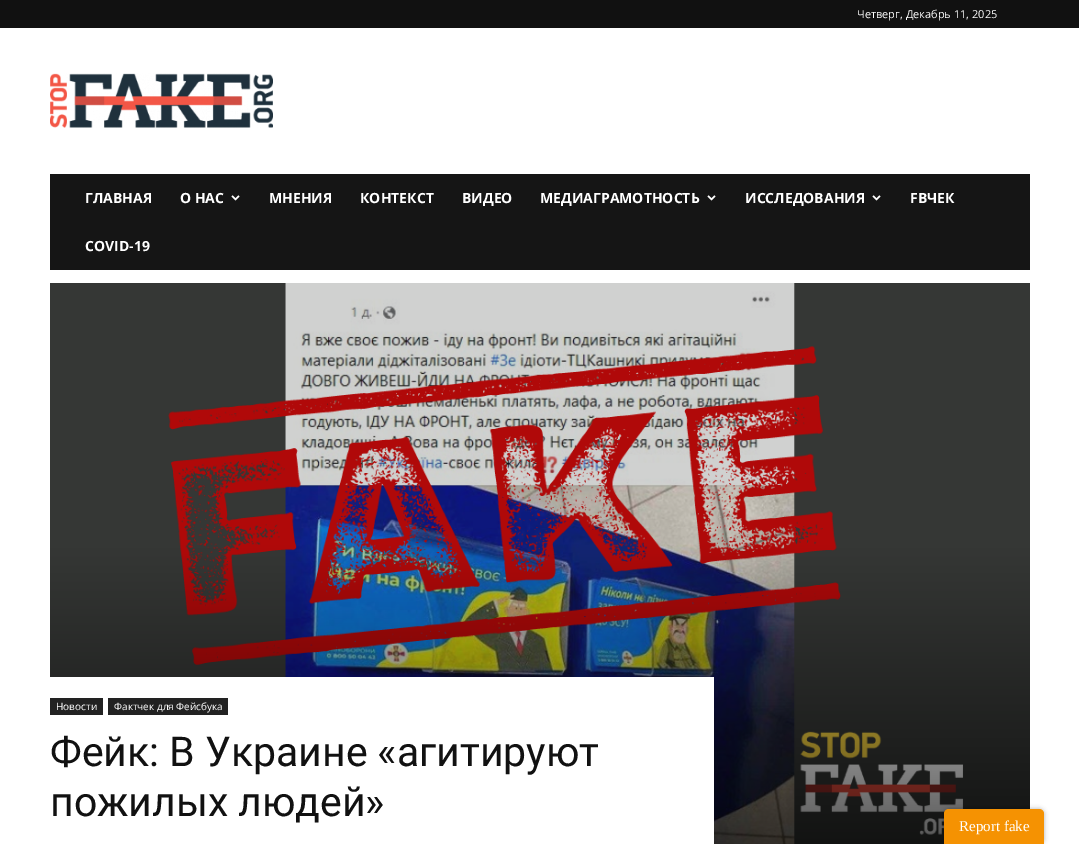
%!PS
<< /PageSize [1079 844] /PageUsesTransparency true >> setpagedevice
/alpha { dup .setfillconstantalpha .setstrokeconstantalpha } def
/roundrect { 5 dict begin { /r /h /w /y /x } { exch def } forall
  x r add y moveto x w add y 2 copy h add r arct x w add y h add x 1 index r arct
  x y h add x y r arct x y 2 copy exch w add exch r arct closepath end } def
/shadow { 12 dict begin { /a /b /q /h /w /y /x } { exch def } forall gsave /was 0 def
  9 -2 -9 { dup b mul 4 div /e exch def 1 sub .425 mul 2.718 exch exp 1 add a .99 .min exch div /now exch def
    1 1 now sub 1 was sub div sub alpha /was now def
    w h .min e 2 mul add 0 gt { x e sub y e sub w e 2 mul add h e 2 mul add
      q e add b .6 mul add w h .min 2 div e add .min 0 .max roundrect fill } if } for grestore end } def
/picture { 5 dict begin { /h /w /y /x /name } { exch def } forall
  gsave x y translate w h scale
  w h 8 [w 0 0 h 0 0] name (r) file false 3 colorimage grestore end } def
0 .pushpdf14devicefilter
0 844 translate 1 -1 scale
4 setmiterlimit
1 setgray
0 0 1079 844 rectfill
0.067 setgray
0 0 1079 28 rectfill
/OpenSans-Regular [11 0 0 -11 0 0] selectfont
1 setgray
857 18 moveto (Четверг, Декабрь 11, 2025) show
(img1.rgb) 50 73 223 55 picture
0.082 setgray
50 174 980 96 rectfill
/OpenSans-Bold [14 0 0 -14 0 0] selectfont
1 setgray
85 203 moveto (ГЛАВНАЯ) show
180 203 moveto (О НАС) show
(img2.rgb) 231 195 9 6 picture
269 203 moveto (МНЕНИЯ) show
360 203 moveto (КОНТЕКСТ) show
462 203 moveto (ВИДЕО) show
540 203 moveto (МЕДИАГРАМОТНОСТЬ) show
(img2.rgb) 707 195 9 6 picture
745 203 moveto (ИССЛЕДОВАНИЯ) show
(img2.rgb) 872 195 9 6 picture
910 203 moveto (FBЧЕК) show
85 251 moveto (COVID-19) show
(img3.rgb) 50 283 980 561 picture
50 677 664 167 rectfill
0.133 setgray
50 698 53 17 rectfill
/OpenSans-Regular [10 0 0 -10 0 0] selectfont
1 setgray
56 710 moveto (Новости) show
0.133 setgray
108 698 120 17 rectfill
1 setgray
114 710 moveto (Фактчек для Фейсбука) show
/Roboto-Regular [41 0 0 -41 0 0] selectfont
0.067 setgray
50 766 moveto (Фейк: В Украине «агитируют) show
50 816 moveto (пожилых людей») show
0 setgray
944 809 100 35 5 2.5 0.3 shadow
0.961 0.573 0.008 setrgbcolor
newpath 949 809 moveto 1039 809 lineto 1042 809 1044 811 1044 814 curveto 1044 844 lineto 944 844 lineto 944 814 lineto 944 811 946 809 949 809 curveto closepath fill
/LiberationSerif-Regular [15 0 0 -15 0 0] selectfont
1 setgray
959 831 moveto (Report fake) show
.poppdf14devicefilter showpage
